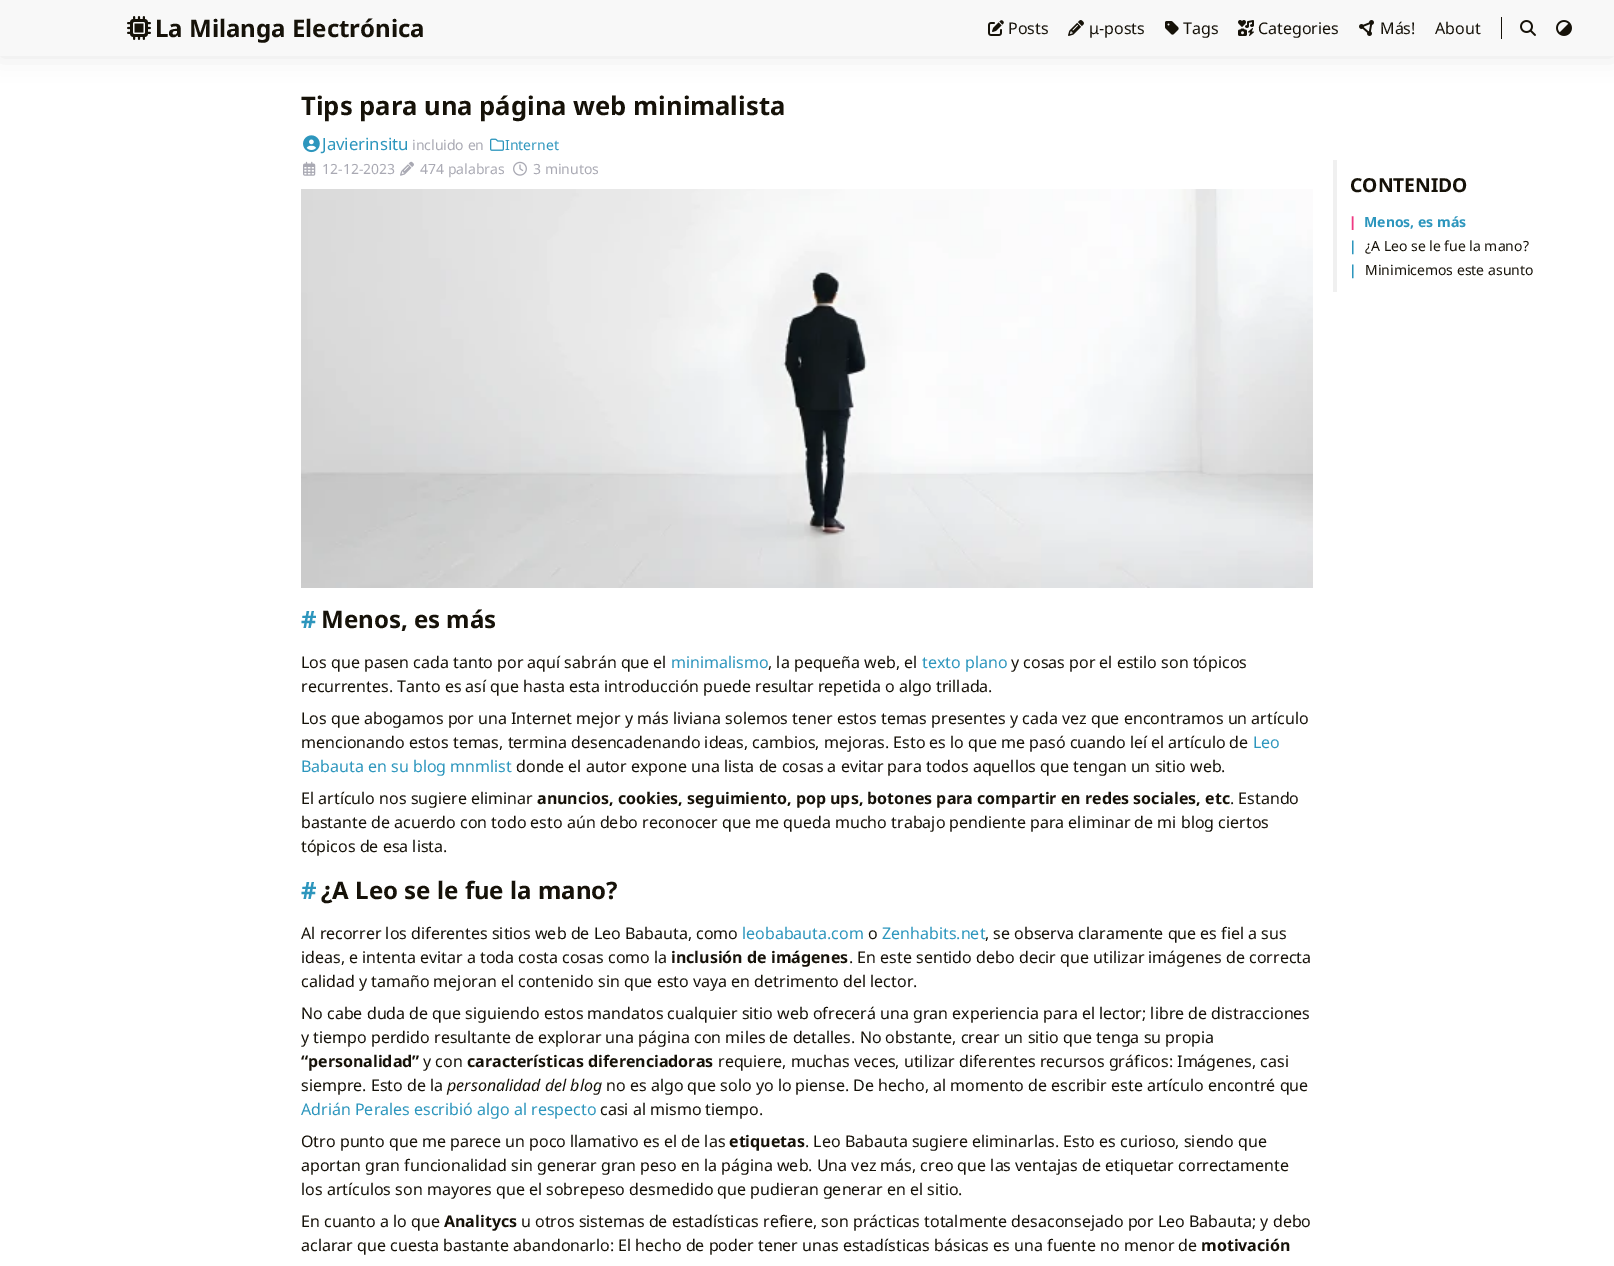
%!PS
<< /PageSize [1614 1266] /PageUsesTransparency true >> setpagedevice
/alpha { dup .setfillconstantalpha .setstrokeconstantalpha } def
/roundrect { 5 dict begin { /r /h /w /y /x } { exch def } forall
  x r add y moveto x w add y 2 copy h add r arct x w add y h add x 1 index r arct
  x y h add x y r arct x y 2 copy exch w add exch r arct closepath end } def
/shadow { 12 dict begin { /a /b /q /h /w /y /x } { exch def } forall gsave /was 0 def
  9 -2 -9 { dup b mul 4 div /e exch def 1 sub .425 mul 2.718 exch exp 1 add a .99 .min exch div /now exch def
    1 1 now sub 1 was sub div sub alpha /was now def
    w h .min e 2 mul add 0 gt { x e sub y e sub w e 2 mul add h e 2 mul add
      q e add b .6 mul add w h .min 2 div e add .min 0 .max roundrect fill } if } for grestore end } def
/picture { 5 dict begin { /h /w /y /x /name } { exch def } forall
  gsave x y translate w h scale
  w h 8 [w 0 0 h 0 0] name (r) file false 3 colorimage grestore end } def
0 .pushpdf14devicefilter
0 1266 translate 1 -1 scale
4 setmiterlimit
1 setgray
0 0 1614 1266 rectfill
0 setgray
0 0 1614 56 0 12 0.1 shadow
0.973 setgray
0 0 1614 56 rectfill
(img1.rgb) 127 16 24 24 picture
/NotoSans-Bold [24 0 0 -24 0 0] selectfont
0.086 0.071 0.035 setrgbcolor
155 37 moveto (La Milanga Electrónica) show
(img2.rgb) 988 20 16 16 picture
/NotoSans-Regular [16 0 0 -16 0 0] selectfont
1008 34 moveto (Posts) show
(img3.rgb) 1068 20 16 16 picture
1089 34 moveto (μ-posts) show
(img4.rgb) 1165 21 14 14 picture
1183 34 moveto (Tags) show
(img5.rgb) 1238 20 16 16 picture
1258 34 moveto (Categories) show
(img6.rgb) 1359 20 15 16 picture
1380 34 moveto (Más!) show
1435 34 moveto (About) show
1501 17 1 22 rectfill
(img7.rgb) 1520 20 16 16 picture
(img8.rgb) 1556 20 16 16 picture
/NotoSans-Bold [25.6 0 0 -25.6 0 0] selectfont
301 115 moveto (Tips para una página web minimalista) show
(img9.rgb) 303 135 17 18 picture
/NotoSans-Regular [16.75 0 0 -16.75 0 0] selectfont
0.176 0.588 0.741 setrgbcolor
322 150 moveto (Javierinsitu) show
/NotoSans-Regular [14 0 0 -14 0 0] selectfont
0.663 0.663 0.702 setrgbcolor
412 150 moveto (incluido en) show
(img10.rgb) 490 138 14 13 picture
0.176 0.588 0.741 setrgbcolor
505 150 moveto (Internet) show
(img11.rgb) 303 161 13 15 picture
0.663 0.663 0.702 setrgbcolor
322 174 moveto (12-12-2023) show
(img12.rgb) 400 161 14 15 picture
420 174 moveto (474 palabras) show
(img13.rgb) 513 161 14 15 picture
533 174 moveto (3 minutos) show
(img14.rgb) 301 189 1012 399 picture
/NotoSans-Bold [24 0 0 -24 0 0] selectfont
0.176 0.588 0.741 setrgbcolor
301 628 moveto (#) show
0.086 0.071 0.035 setrgbcolor
321 628 moveto (Menos, es más) show
/NotoSans-Regular [16 0 0 -16 0 0] selectfont
301 668 moveto (Los que pasen cada tanto por aquí sabrán que el) show
0.176 0.588 0.741 setrgbcolor
671 668 moveto (minimalismo) show
0.086 0.071 0.035 setrgbcolor
768 668 moveto (, la pequeña web, el) show
0.176 0.588 0.741 setrgbcolor
922 668 moveto (texto plano) show
0.086 0.071 0.035 setrgbcolor
1011 668 moveto (y cosas por el estilo son tópicos) show
301 692 moveto (recurrentes. Tanto es así que hasta esta introducción puede resultar repetida o algo trillada.) show
301 724 moveto (Los que abogamos por una Internet mejor y más liviana solemos tener estos temas presentes y cada vez que encontramos un artículo) show
301 748 moveto (mencionando estos temas, termina desencadenando ideas, cambios, mejoras. Esto es lo que me pasó cuando leí el artículo de) show
0.176 0.588 0.741 setrgbcolor
1253 748 moveto (Leo) show
301 772 moveto (Babauta en su blog mnmlist) show
0.086 0.071 0.035 setrgbcolor
516 772 moveto (donde el autor expone una lista de cosas a evitar para todos aquellos que tengan un sitio web.) show
301 804 moveto (El artículo nos sugiere eliminar) show
/NotoSans-Bold [16 0 0 -16 0 0] selectfont
537 804 moveto (anuncios, cookies, seguimiento, pop ups, botones para compartir en redes sociales, etc) show
/NotoSans-Regular [16 0 0 -16 0 0] selectfont
1230 804 moveto (. Estando) show
301 828 moveto (bastante de acuerdo con todo esto aún debo reconocer que me queda mucho trabajo pendiente para eliminar de mi blog ciertos) show
301 852 moveto (tópicos de esa lista.) show
/NotoSans-Bold [24 0 0 -24 0 0] selectfont
0.176 0.588 0.741 setrgbcolor
301 899 moveto (#) show
0.086 0.071 0.035 setrgbcolor
321 899 moveto (¿A Leo se le fue la mano?) show
/NotoSans-Regular [16 0 0 -16 0 0] selectfont
301 939 moveto (Al recorrer los diferentes sitios web de Leo Babauta, como) show
0.176 0.588 0.741 setrgbcolor
742 939 moveto (leobabauta.com) show
0.086 0.071 0.035 setrgbcolor
868 939 moveto (o) show
0.176 0.588 0.741 setrgbcolor
882 939 moveto (Zenhabits.net) show
0.086 0.071 0.035 setrgbcolor
985 939 moveto (, se observa claramente que es fiel a sus) show
301 963 moveto (ideas, e intenta evitar a toda costa cosas como la) show
/NotoSans-Bold [16 0 0 -16 0 0] selectfont
671 963 moveto (inclusión de imágenes) show
/NotoSans-Regular [16 0 0 -16 0 0] selectfont
849 963 moveto (. En este sentido debo decir que utilizar imágenes de correcta) show
301 987 moveto (calidad y tamaño mejoran el contenido sin que esto vaya en detrimento del lector.) show
301 1019 moveto (No cabe duda de que siguiendo estos mandatos cualquier sitio web ofrecerá una gran experiencia para el lector; libre de distracciones) show
301 1043 moveto (y tiempo perdido resultante de explorar una página con miles de detalles. No obstante, crear un sitio que tenga su propia) show
/NotoSans-Bold [16 0 0 -16 0 0] selectfont
301 1067 moveto (“personalidad”) show
/NotoSans-Regular [16 0 0 -16 0 0] selectfont
423 1067 moveto (y con) show
/NotoSans-Bold [16 0 0 -16 0 0] selectfont
467 1067 moveto (características diferenciadoras) show
/NotoSans-Regular [16 0 0 -16 0 0] selectfont
718 1067 moveto (requiere, muchas veces, utilizar diferentes recursos gráficos: Imágenes, casi) show
301 1091 moveto (siempre. Esto de la) show
/NotoSans-Italic [16 0 0 -16 0 0] selectfont
447 1091 moveto (personalidad del blog) show
/NotoSans-Regular [16 0 0 -16 0 0] selectfont
606 1091 moveto (no es algo que solo yo lo piense. De hecho, al momento de escribir este artículo encontré que) show
0.176 0.588 0.741 setrgbcolor
301 1115 moveto (Adrián Perales escribió algo al respecto) show
0.086 0.071 0.035 setrgbcolor
600 1115 moveto (casi al mismo tiempo.) show
301 1147 moveto (Otro punto que me parece un poco llamativo es el de las) show
/NotoSans-Bold [16 0 0 -16 0 0] selectfont
729 1147 moveto (etiquetas) show
/NotoSans-Regular [16 0 0 -16 0 0] selectfont
805 1147 moveto (. Leo Babauta sugiere eliminarlas. Esto es curioso, siendo que) show
301 1171 moveto (aportan gran funcionalidad sin generar gran peso en la página web. Una vez más, creo que las ventajas de etiquetar correctamente) show
301 1195 moveto (los artículos son mayores que el sobrepeso desmedido que pudieran generar en el sitio.) show
301 1227 moveto (En cuanto a lo que) show
/NotoSans-Bold [16 0 0 -16 0 0] selectfont
444 1227 moveto (Analitycs) show
/NotoSans-Regular [16 0 0 -16 0 0] selectfont
521 1227 moveto (u otros sistemas de estadísticas refiere, son prácticas totalmente desaconsejado por Leo Babauta; y debo) show
301 1251 moveto (aclarar que cuesta bastante abandonarlo: El hecho de poder tener unas estadísticas básicas es una fuente no menor de) show
/NotoSans-Bold [16 0 0 -16 0 0] selectfont
1201 1251 moveto (motivación) show
0.941 setgray
1333 160 4 132 rectfill
/NotoSans-Bold [19.25 0 0 -19.25 0 0] selectfont
0.086 0.071 0.035 setrgbcolor
1350 192 moveto (CONTENIDO) show
/NotoSans-Black [14 0 0 -14 0 0] selectfont
0.937 0.224 0.51 setrgbcolor
1349 227 moveto (|) show
/NotoSans-Bold [14 0 0 -14 0 0] selectfont
0.176 0.588 0.741 setrgbcolor
1364 227 moveto (Menos, es más) show
1349 251 moveto (|) show
/NotoSans-Regular [14 0 0 -14 0 0] selectfont
0.086 0.071 0.035 setrgbcolor
1365 251 moveto (¿A Leo se le fue la mano?) show
/NotoSans-Bold [14 0 0 -14 0 0] selectfont
0.176 0.588 0.741 setrgbcolor
1349 275 moveto (|) show
/NotoSans-Regular [14 0 0 -14 0 0] selectfont
0.086 0.071 0.035 setrgbcolor
1365 275 moveto (Minimicemos este asunto) show
.poppdf14devicefilter showpage
